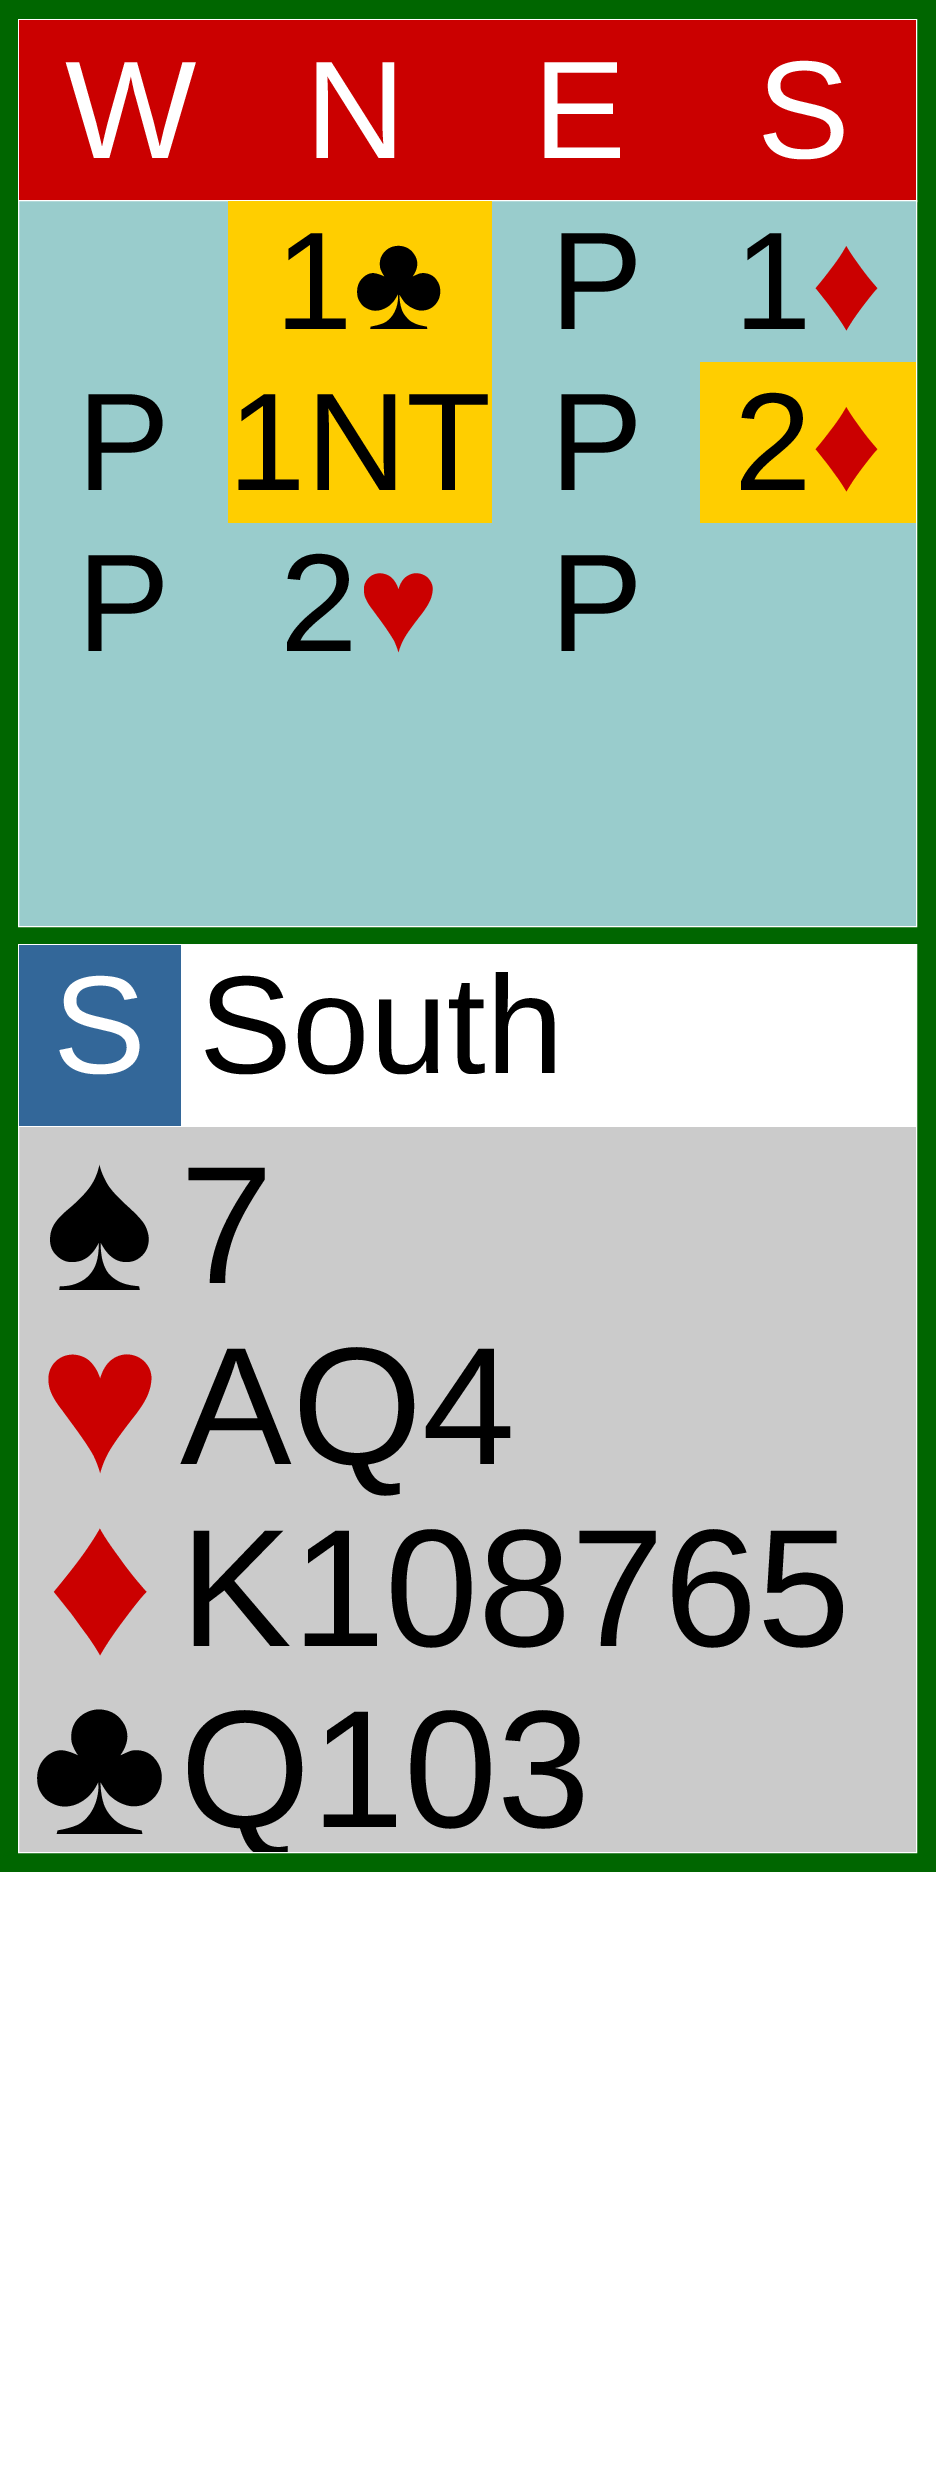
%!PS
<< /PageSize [936 2484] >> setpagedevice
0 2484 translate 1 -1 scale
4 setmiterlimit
1 setgray
0 0 936 2484 rectfill
0 0.4 0 setrgbcolor
0 0 936 1872 rectfill
1 setgray
18.5 19.5 898 182 rectstroke
0.796 0 0 setrgbcolor
19 20 897 180 rectfill
/LiberationSans-Regular [139.5 0 0 -139.5 0 0] selectfont
1 setgray
65 158 moveto (W) show
305 158 moveto (N) show
533 158 moveto (E) show
757 158 moveto (S) show
0.6 0.8 0.8 setrgbcolor
newpath 18.5 200.5 moveto 916.5 200.5 lineto 916.5 926.5 lineto 18.5 926.5 lineto closepath gsave fill grestore
1 setgray
stroke
1 0.808 0 setrgbcolor
228 201 264 322 rectfill
0 setgray
275 329 moveto (1♣) show
550 329 moveto (P) show
734 329 moveto (1) show
0.796 0 0 setrgbcolor
811 329 moveto (♦) show
0 setgray
77 490 moveto (P) show
228 490 moveto (1NT) show
550 490 moveto (P) show
1 0.808 0 setrgbcolor
700 362 216 161 rectfill
0 setgray
734 490 moveto (2) show
0.796 0 0 setrgbcolor
811 490 moveto (♦) show
0 setgray
77 651 moveto (P) show
280 651 moveto (2) show
0.796 0 0 setrgbcolor
357 651 moveto (♥) show
0 setgray
550 651 moveto (P) show
0.796 setgray
19 1127 897 725 rectfill
1 setgray
18.5 944.5 898 908 rectstroke
19 945 897 182 rectfill
0.2 0.404 0.6 setrgbcolor
19 945 162 181 rectfill
1 setgray
53 1073 moveto (S) show
0 setgray
199 1073 moveto (South) show
/LiberationSans-Regular [209 0 0 -209 0 0] selectfont
44 1290 moveto (♠) show
/LiberationSans-Regular [167.5 0 0 -167.5 0 0] selectfont
180 1283 moveto (7) show
/LiberationSans-Regular [209 0 0 -209 0 0] selectfont
0.796 0 0 setrgbcolor
38 1471 moveto (♥) show
/LiberationSans-Regular [167.5 0 0 -167.5 0 0] selectfont
0 setgray
180 1464 moveto (AQ4) show
/LiberationSans-Regular [209 0 0 -209 0 0] selectfont
0.796 0 0 setrgbcolor
47 1653 moveto (♦) show
/LiberationSans-Regular [167.5 0 0 -167.5 0 0] selectfont
0 setgray
180 1646 moveto (K108765) show
/LiberationSans-Regular [209 0 0 -209 0 0] selectfont
31 1834 moveto (♣) show
gsave
19 945 897 907 rectclip
/LiberationSans-Regular [167.5 0 0 -167.5 0 0] selectfont
180 1827 moveto (Q) show
grestore
/LiberationSans-Regular [167.5 0 0 -167.5 0 0] selectfont
311 1827 moveto (103) show
showpage
